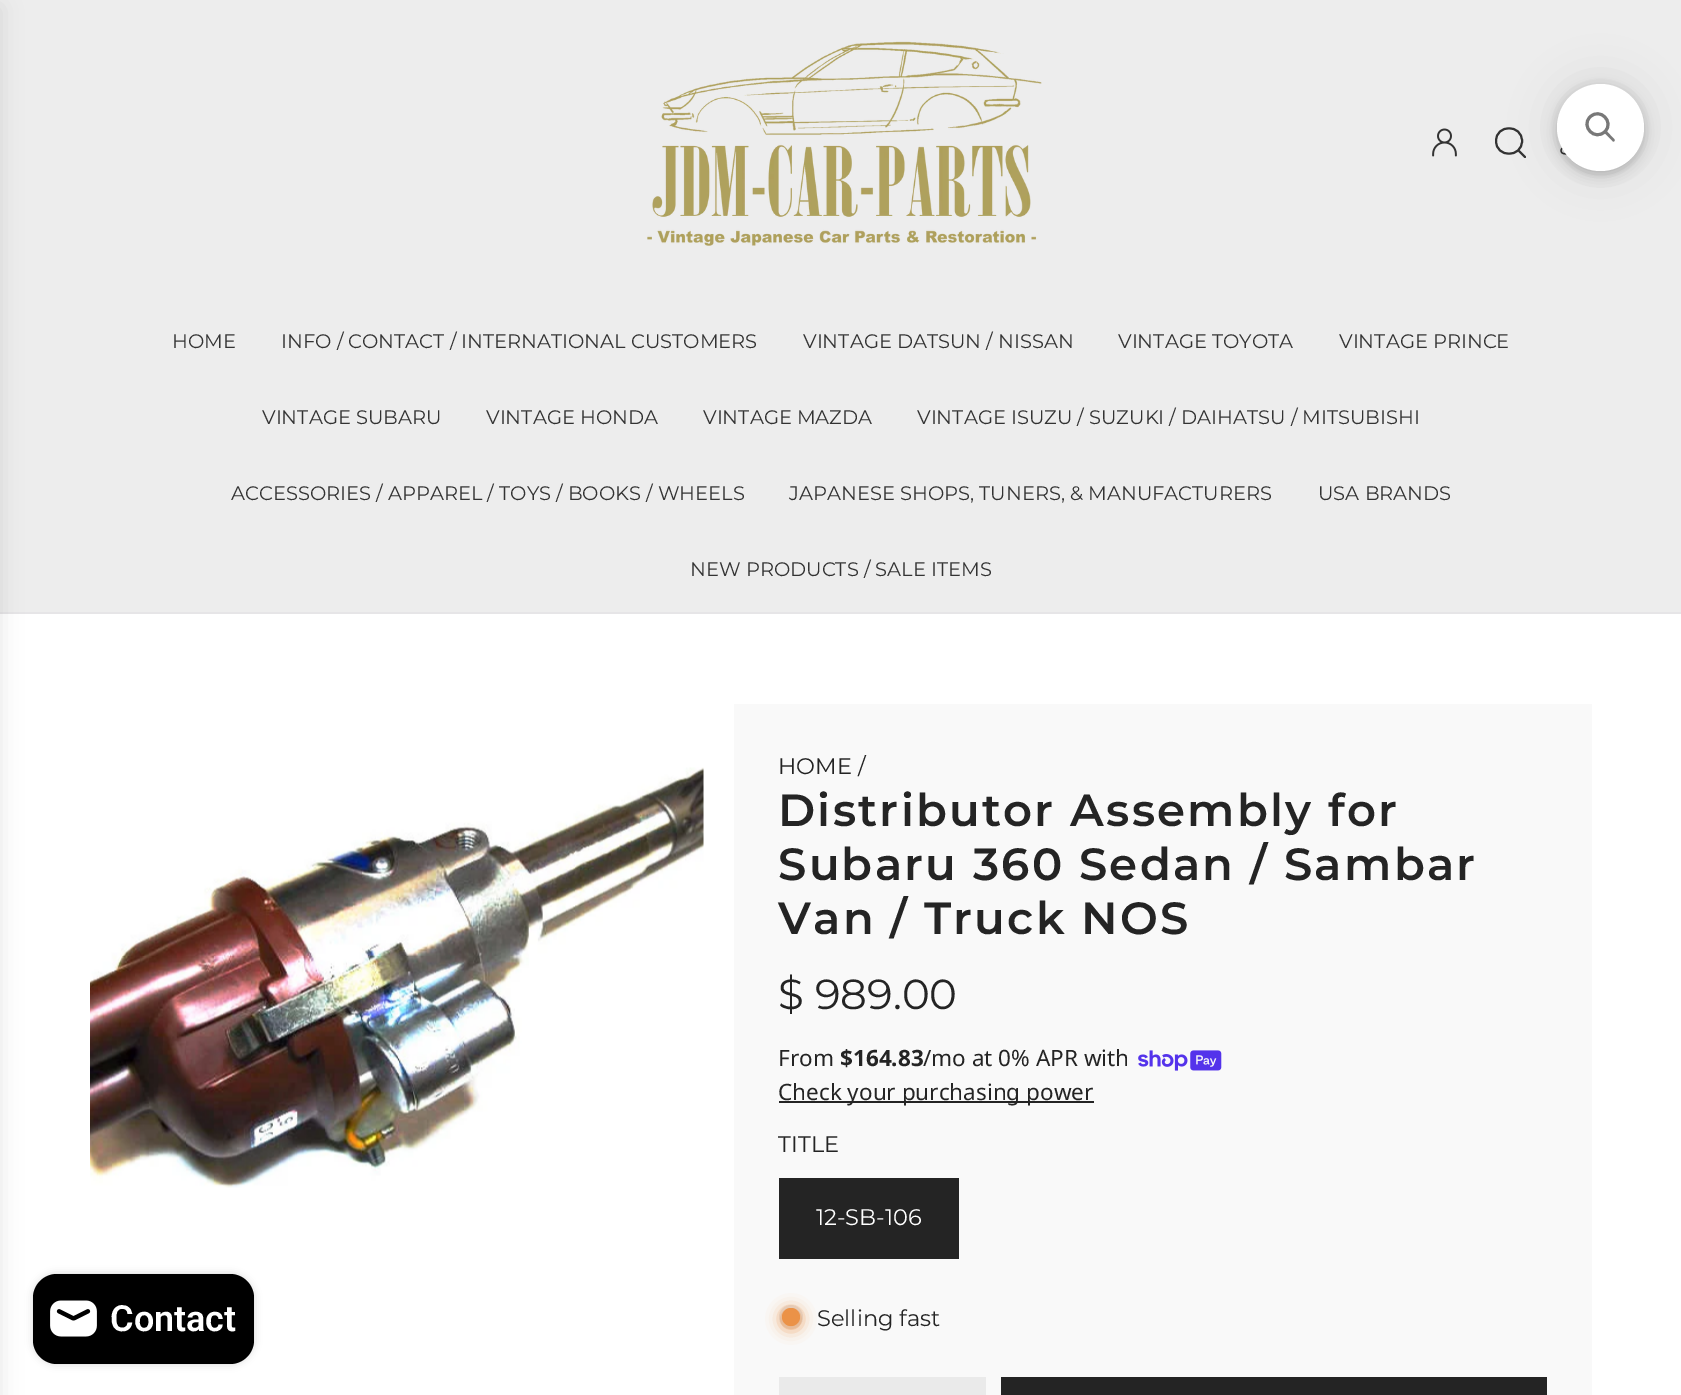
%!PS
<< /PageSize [1681 1395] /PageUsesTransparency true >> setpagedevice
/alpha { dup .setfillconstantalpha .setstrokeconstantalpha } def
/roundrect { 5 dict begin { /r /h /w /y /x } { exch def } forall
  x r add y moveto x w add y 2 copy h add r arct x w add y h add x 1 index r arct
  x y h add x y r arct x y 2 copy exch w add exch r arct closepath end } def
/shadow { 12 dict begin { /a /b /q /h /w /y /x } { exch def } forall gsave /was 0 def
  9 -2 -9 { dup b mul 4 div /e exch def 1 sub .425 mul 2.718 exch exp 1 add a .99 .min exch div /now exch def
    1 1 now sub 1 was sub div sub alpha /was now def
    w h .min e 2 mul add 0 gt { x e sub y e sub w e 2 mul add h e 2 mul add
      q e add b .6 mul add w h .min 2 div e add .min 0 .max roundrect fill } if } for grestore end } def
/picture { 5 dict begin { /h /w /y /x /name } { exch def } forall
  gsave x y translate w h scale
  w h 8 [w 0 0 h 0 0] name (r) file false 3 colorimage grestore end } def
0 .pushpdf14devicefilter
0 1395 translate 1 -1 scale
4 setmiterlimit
1 setgray
0 0 1681 1395 rectfill
0.929 setgray
0 0 1681 612 rectfill
(img4.rgb) 1560 147 12 13 picture
0 setgray
1557 90 87 87 43.5 6 0.05 shadow
1557 87 87 87 43.5 6 0.15 shadow
0.2 setgray
2 setlinewidth
1 setlinecap
1 setlinejoin
newpath 1518.5 150.5 moveto 1525 157 lineto 1496 141 moveto 1496 158 1522 158 1522 141 curveto 1522 124 1496 124 1496 141 curveto closepath stroke
0 setgray
1557 84 87 87 43.5 22.5 0.1 shadow
1 setgray
newpath 1600.5 127.5 43.5 0 360 arc closepath fill
0.471 setgray
3 setlinewidth
0 setlinecap
0 setlinejoin
newpath 1590 117 moveto 1600 107 1614.5 122 1605 131.5 curveto 1595 141.5 1580.5 126.5 1590 117 curveto closepath stroke
newpath 1604 132.5 moveto 1606 130.5 lineto 1614.5 139.5 lineto 1615.5 140.5 1613.5 142.5 1612.5 141 curveto closepath fill
0 setgray
33 1274 221 90 24 4 0.15 shadow
0.902 0.898 0.906 setrgbcolor
0 612 1681 2 rectfill
0 setgray
-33 8 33 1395 0 11 0.1 shadow
33 1274 221 90 24 roundrect fill
(img1.rgb) 50 1300 47 37 picture
/Roboto-SemiBold [36 0 0 -36 0 0] selectfont
1 setgray
110 1331 moveto (Contact) show
(img2.rgb) 647 41 395 205 picture
(img3.rgb) 1432 128 25 29 picture
/Montserrat-Regular [19.5 0 0 -19.5 0 0] selectfont
0.2 setgray
172 348 moveto (HOME) show
281 348 moveto (INFO / CONTACT / INTERNATIONAL CUSTOMERS) show
803 348 moveto (VINTAGE DATSUN / NISSAN) show
1118 348 moveto (VINTAGE TOYOTA) show
1339 348 moveto (VINTAGE PRINCE) show
262 424 moveto (VINTAGE SUBARU) show
486 424 moveto (VINTAGE HONDA) show
703 424 moveto (VINTAGE MAZDA) show
917 424 moveto (VINTAGE ISUZU / SUZUKI / DAIHATSU / MITSUBISHI) show
231 500 moveto (ACCESSORIES / APPAREL / TOYS / BOOKS / WHEELS) show
789 500 moveto (JAPANESE SHOPS, TUNERS, & MANUFACTURERS) show
1318 500 moveto (USA BRANDS) show
690 576 moveto (NEW PRODUCTS / SALE ITEMS) show
(img5.rgb) 90 767 614 421 picture
0.976 setgray
734 704 858 691 rectfill
/Montserrat-Regular [22.5 0 0 -22.5 0 0] selectfont
0.141 setgray
778 774 moveto (HOME /) show
/Montserrat-SemiBold [45 0 0 -45 0 0] selectfont
778 826 moveto 2.25 0 (Distributor Assembly for) ashow
778 880 moveto 2.25 0 (Subaru 360 Sedan / Sambar) ashow
778 934 moveto 2.25 0 (Van / Truck NOS) ashow
/Montserrat-Regular [42 0 0 -42 0 0] selectfont
778 1009 moveto ($ 989.00) show
/NotoSans-Regular [22.5 0 0 -22.5 0 0] selectfont
778 1066 moveto (From) show
/NotoSans-Bold [22.5 0 0 -22.5 0 0] selectfont
840 1066 moveto ($164.83) show
/NotoSans-Regular [22.5 0 0 -22.5 0 0] selectfont
923 1066 moveto (/mo at 0% APR with) show
(img6.rgb) 1138 1050 84 21 picture
779 1101 315 2 rectfill
778 1100 moveto (Check your purchasing power) show
/Montserrat-Regular [22.5 0 0 -22.5 0 0] selectfont
778 1152 moveto (TITLE) show
779 1178 180 81 rectfill
1 setgray
816 1225 moveto (12-SB-106) show
0.894 setgray
newpath 791 1317 12 0 360 arc closepath fill
0.922 0.573 0.278 setrgbcolor
782 1310 18 18 9 7.5 1 shadow
newpath 791 1317 9 0 360 arc closepath fill
0.141 setgray
817 1326 moveto (Selling fast) show
0.918 setgray
779 1377 207 18 rectfill
0.141 setgray
1001 1377 546 18 rectfill
.poppdf14devicefilter showpage
